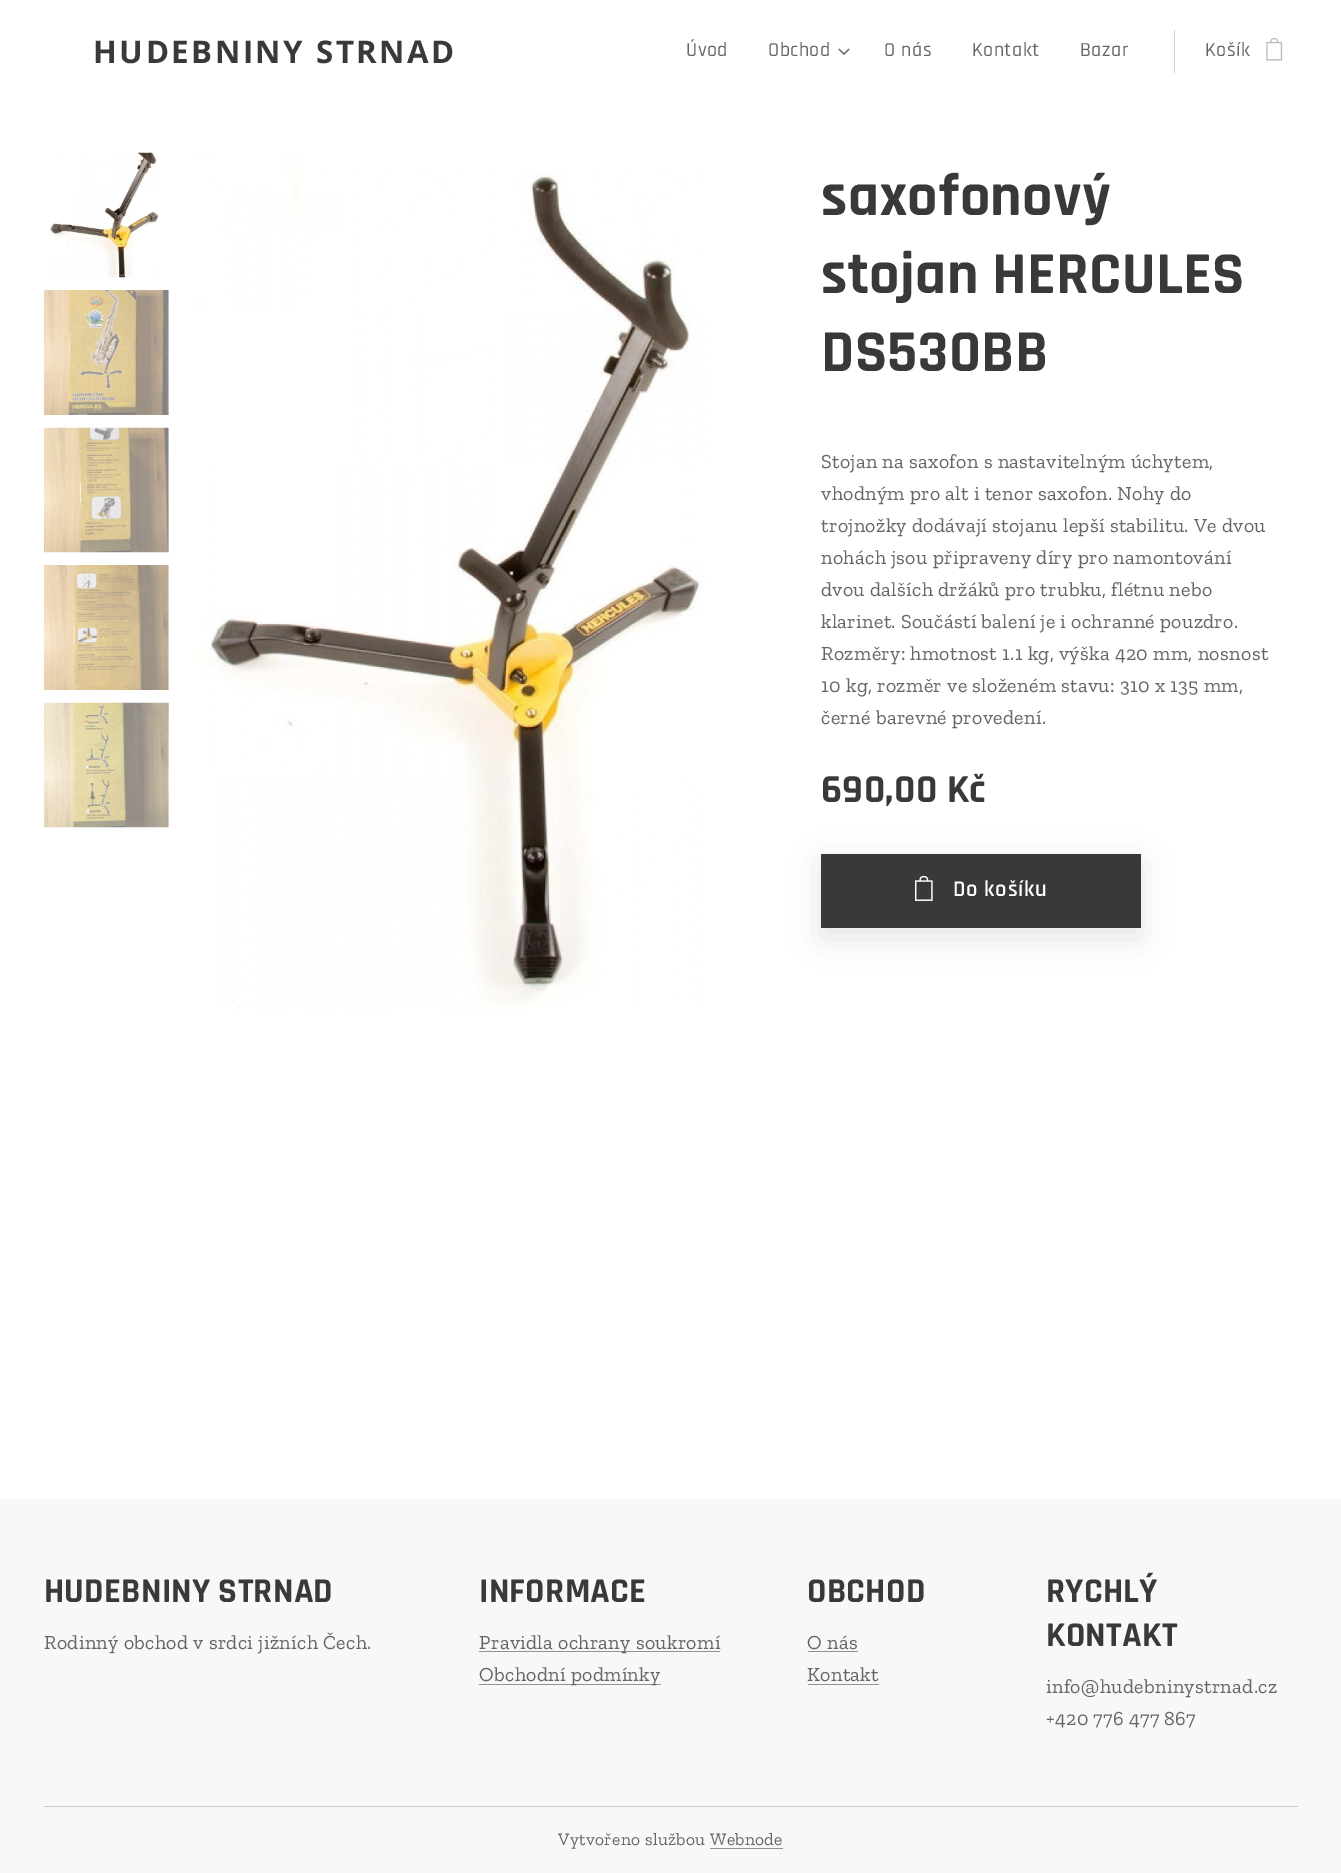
%!PS
<< /PageSize [1341 1873] /PageUsesTransparency true >> setpagedevice
/alpha { dup .setfillconstantalpha .setstrokeconstantalpha } def
/roundrect { 5 dict begin { /r /h /w /y /x } { exch def } forall
  x r add y moveto x w add y 2 copy h add r arct x w add y h add x 1 index r arct
  x y h add x y r arct x y 2 copy exch w add exch r arct closepath end } def
/shadow { 12 dict begin { /a /b /q /h /w /y /x } { exch def } forall gsave /was 0 def
  9 -2 -9 { dup b mul 4 div /e exch def 1 sub .425 mul 2.718 exch exp 1 add a .99 .min exch div /now exch def
    1 1 now sub 1 was sub div sub alpha /was now def
    w h .min e 2 mul add 0 gt { x e sub y e sub w e 2 mul add h e 2 mul add
      q e add b .6 mul add w h .min 2 div e add .min 0 .max roundrect fill } if } for grestore end } def
/picture { 5 dict begin { /h /w /y /x /name } { exch def } forall
  gsave x y translate w h scale
  w h 8 [w 0 0 h 0 0] name (r) file false 3 colorimage grestore end } def
0 .pushpdf14devicefilter
0 1873 translate 1 -1 scale
4 setmiterlimit
1 setgray
0 0 1341 1873 rectfill
/OpenSans-Bold [31.25 0 0 -31.25 0 0] selectfont
0.224 setgray
93 63 moveto 2.5 0 (HUDEBNINY STRNAD) ashow
/Rajdhani-Medium [20 0 0 -20 0 0] selectfont
0.4 setgray
686 56 moveto 0.5 0 (Úvod) ashow
768 56 moveto 0.5 0 (Obchod) ashow
(img1.rgb) 838 48 12 7 picture
884 56 moveto 0.5 0 (O nás) ashow
972 56 moveto 0.5 0 (Kontakt) ashow
1080 56 moveto 0.5 0 (Bazar) ashow
0.82 setgray
1174 30 1 43 rectfill
0.4 setgray
1205 56 moveto 0.5 0 (Košík) ashow
(img2.rgb) 1266 38 17 23 picture
(img3.rgb) 47 152 112 126 picture
(img4.rgb) 43 290 126 125 picture
(img5.rgb) 43 427 126 126 picture
(img6.rgb) 43 565 126 125 picture
(img7.rgb) 43 702 126 126 picture
(img8.rgb) 196 153 511 857 picture
/Rajdhani-Bold [60 0 0 -60 0 0] selectfont
0.224 setgray
821 215 moveto 0.35 0 (saxofonový) ashow
821 293 moveto 0.35 0 (stojan HERCULES) ashow
821 371 moveto 0.35 0 (DS530BB) ashow
/ZillaSlab-Regular [20 0 0 -20 0 0] selectfont
0.4 setgray
821 468 moveto 0.35 0 (Stojan na saxofon s nastavitelným úchytem,) ashow
821 500 moveto 0.35 0 (vhodným pro alt i tenor saxofon. Nohy do) ashow
821 532 moveto 0.35 0 (trojnožky dodávají stojanu lepší stabilitu. Ve dvou) ashow
821 564 moveto 0.35 0 (nohách jsou připraveny díry pro namontování) ashow
821 596 moveto 0.35 0 (dvou dalších držáků pro trubku, flétnu nebo) ashow
821 628 moveto 0.35 0 (klarinet. Součástí balení je i ochranné pouzdro.) ashow
821 660 moveto 0.35 0 (Rozměry: hmotnost 1.1 kg, výška 420 mm, nosnost) ashow
821 692 moveto 0.35 0 (10 kg, rozměr ve složeném stavu: 310 x 135 mm,) ashow
821 724 moveto 0.35 0 (černé barevné provedení.) ashow
/Rajdhani-Bold [40 0 0 -40 0 0] selectfont
0.224 setgray
821 802 moveto 0.35 0 (690,00 Kč) ashow
0 setgray
821 864 320 74 0 15.5 0.1 shadow
0.224 setgray
821 854 320 74 rectfill
(img9.rgb) 915 875 18 26 picture
/Rajdhani-SemiBold [22.5 0 0 -22.5 0 0] selectfont
1 setgray
953 896 moveto 0.75 0 (Do košíku) ashow
0.976 0.969 0.98 setrgbcolor
0 1499 1341 374 rectfill
/Rajdhani-Bold [35 0 0 -35 0 0] selectfont
0.224 setgray
44 1602 moveto 0.3 0 (HUDEBNINY STRNAD) ashow
/ZillaSlab-Regular [20 0 0 -20 0 0] selectfont
0.4 setgray
44 1649 moveto 0.35 0 (Rodinný obchod v srdci jižních Čech.) ashow
/Rajdhani-Bold [35 0 0 -35 0 0] selectfont
0.224 setgray
479 1602 moveto 0.3 0 (INFORMACE) ashow
0.573 setgray
479 1651 241 1 rectfill
/ZillaSlab-Regular [20 0 0 -20 0 0] selectfont
0.4 setgray
479 1649 moveto 0.35 0 (Pravidla ochrany soukromí) ashow
0.573 setgray
479 1684 182 1 rectfill
0.4 setgray
479 1681 moveto 0.35 0 (Obchodní podmínky) ashow
/Rajdhani-Bold [35 0 0 -35 0 0] selectfont
0.224 setgray
807 1602 moveto 0.3 0 (OBCHOD) ashow
/ZillaSlab-Regular [20 0 0 -20 0 0] selectfont
0.4 setgray
807 1649 moveto 0.35 0 (O nás) ashow
0.573 setgray
808 1651 50 1 rectfill
0.4 setgray
807 1681 moveto 0.35 0 (Kontakt) ashow
0.573 setgray
808 1684 71 1 rectfill
/Rajdhani-Bold [35 0 0 -35 0 0] selectfont
0.224 setgray
1046 1602 moveto 0.3 0 (RYCHLÝ) ashow
1046 1646 moveto 0.3 0 (KONTAKT) ashow
/ZillaSlab-Regular [20 0 0 -20 0 0] selectfont
0.4 setgray
1046 1693 moveto 0.35 0 (info@hudebninystrnad.cz) ashow
1046 1725 moveto 0.35 0 (+420 776 477 867) ashow
0.788 setgray
44 1806 1254 1 rectfill
/ZillaSlab-Regular [17.5 0 0 -17.5 0 0] selectfont
0.4 setgray
558 1845 moveto 0.35 0 (Vytvořeno službou Webnode) ashow
0.573 setgray
710 1848 73 1 rectfill
.poppdf14devicefilter showpage
